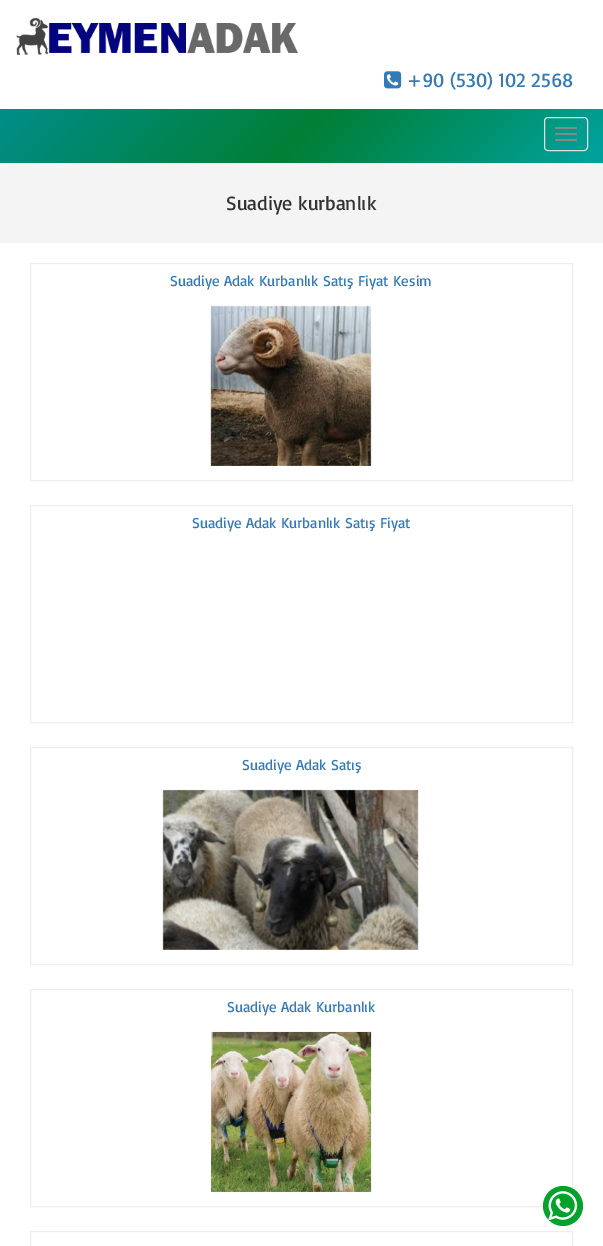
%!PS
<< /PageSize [603 1246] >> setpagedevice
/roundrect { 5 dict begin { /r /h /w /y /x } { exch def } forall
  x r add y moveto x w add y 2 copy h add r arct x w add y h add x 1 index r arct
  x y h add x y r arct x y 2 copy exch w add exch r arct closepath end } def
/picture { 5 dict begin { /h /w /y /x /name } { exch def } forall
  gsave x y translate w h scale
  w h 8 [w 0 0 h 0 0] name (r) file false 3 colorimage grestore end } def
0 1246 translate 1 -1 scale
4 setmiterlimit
1 setgray
0 0 603 1246 rectfill
(img1.rgb) 16 17 283 38 picture
(img2.rgb) 384 71 18 18 picture
/Basic-Regular [20 0 0 -20 0 0] selectfont
0.2 0.478 0.718 setrgbcolor
407 87 moveto (+90 \(530\) 102 2568) show
gsave newpath 0 109 moveto 603 109 lineto 603 163 lineto 0 163 lineto closepath clip newpath
<< /ShadingType 2 /ColorSpace /DeviceRGB /Coords [137 -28 466 300] /Extend [true true] /Function << /FunctionType 3 /Domain [0 1] /Functions [<< /FunctionType 2 /Domain [0 1] /C0 [0 0.557 0.541] /C1 [0 0.498 0.208] /N 1 >> << /FunctionType 2 /Domain [0 1] /C0 [0 0.498 0.208] /C1 [0 0.639 0.627] /N 1 >>] /Bounds [0.5] /Encode [0 1 0 1] >> >> shfill grestore
0.867 setgray
544.5 117.5 43 33 3.5 roundrect stroke
0.533 setgray
555 127 22 2 1 roundrect fill
555 133 22 2 1 roundrect fill
555 139 22 2 1 roundrect fill
0.957 setgray
0 163 603 80 rectfill
0.2 setgray
226 210 moveto (Suadiye kurbanlık) show
0.933 setgray
30.5 263.5 542 217 rectstroke
/Basic-Regular [15 0 0 -15 0 0] selectfont
0.2 0.478 0.718 setrgbcolor
170 286 moveto (Suadiye Adak Kurbanlık Satış Fiyat Kesim) show
(img3.rgb) 210 305 162 161 picture
0.933 setgray
30.5 505.5 542 217 rectstroke
0.2 0.478 0.718 setrgbcolor
192 528 moveto (Suadiye Adak Kurbanlık Satış Fiyat) show
0.933 setgray
30.5 747.5 542 217 rectstroke
0.2 0.478 0.718 setrgbcolor
242 770 moveto (Suadiye Adak Satış) show
(img4.rgb) 162 789 257 161 picture
0.933 setgray
30.5 989.5 542 217 rectstroke
0.2 0.478 0.718 setrgbcolor
227 1012 moveto (Suadiye Adak Kurbanlık) show
(img5.rgb) 211 1031 161 161 picture
0.933 setgray
30.5 1231.5 542 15 rectstroke
0.016 0.635 0.173 setrgbcolor
newpath 563 1206 20 0 360 arc closepath fill
(img6.rgb) 548 1191 30 30 picture
showpage
